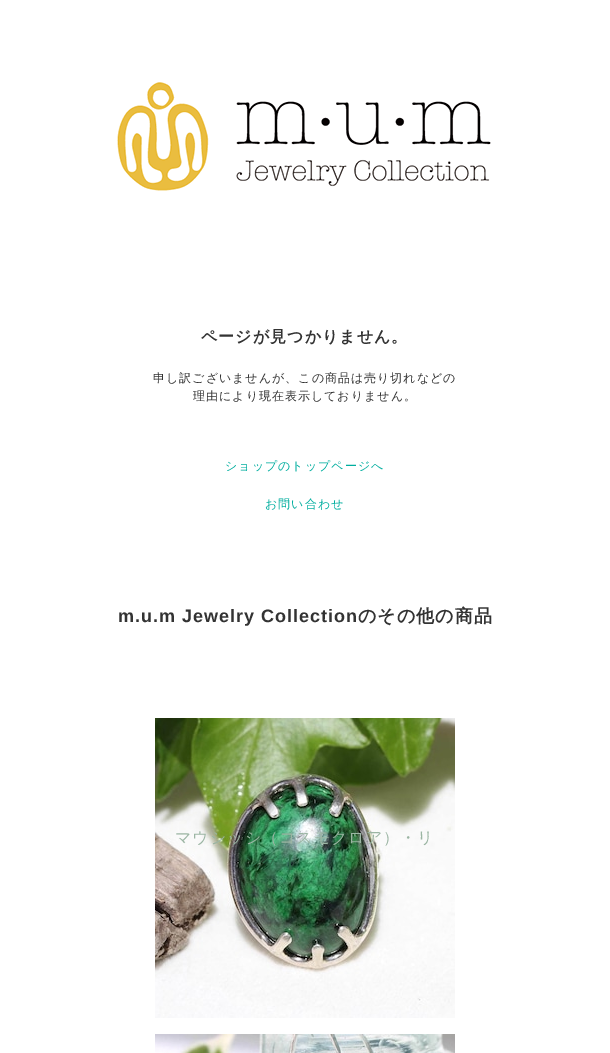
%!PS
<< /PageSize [610 1053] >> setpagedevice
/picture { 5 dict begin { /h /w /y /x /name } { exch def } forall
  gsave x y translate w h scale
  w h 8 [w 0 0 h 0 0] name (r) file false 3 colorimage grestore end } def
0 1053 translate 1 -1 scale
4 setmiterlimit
1 setgray
0 0 610 1053 rectfill
(img1.rgb) 117 82 374 109 picture
/WenQuanYiZenHei-Bold [16 0 0 -16 0 0] selectfont
0.2 setgray
201 342 moveto 1 0 (ページが見つかりません。) ashow
/WenQuanYiZenHei-Medium [12 0 0 -12 0 0] selectfont
153 382 moveto 1 0 (申し訳ございませんが、この商品は売り切れなどの) ashow
193 400 moveto 1 0 (理由により現在表示しておりません。) ashow
0 0.682 0.624 setrgbcolor
225 470 moveto 1 0 (ショップのトップページへ) ashow
265 508 moveto 1 0 (お問い合わせ) ashow
/LiberationSans-Bold [18 0 0 -18 0 0] selectfont
0.2 setgray
118 622 moveto 1 0 (m.u.m Jewelry Collection) ashow
/WenQuanYiZenHei-Bold [18 0 0 -18 0 0] selectfont
358 622 moveto 1 0 (のその他の商品) ashow
(img2.rgb) 155 718 300 300 picture
/WenQuanYiZenHei-Medium [16 0 0 -16 0 0] selectfont
0.608 0.71 0.639 setrgbcolor
175 843 moveto 1 0 (マウシッシ（コスモクロア）・リ) ashow
0.176 0.424 0.286 setrgbcolor
244 868 moveto 1 0 (ング【) ashow
(img3.rgb) 155 1034 300 19 picture
showpage
